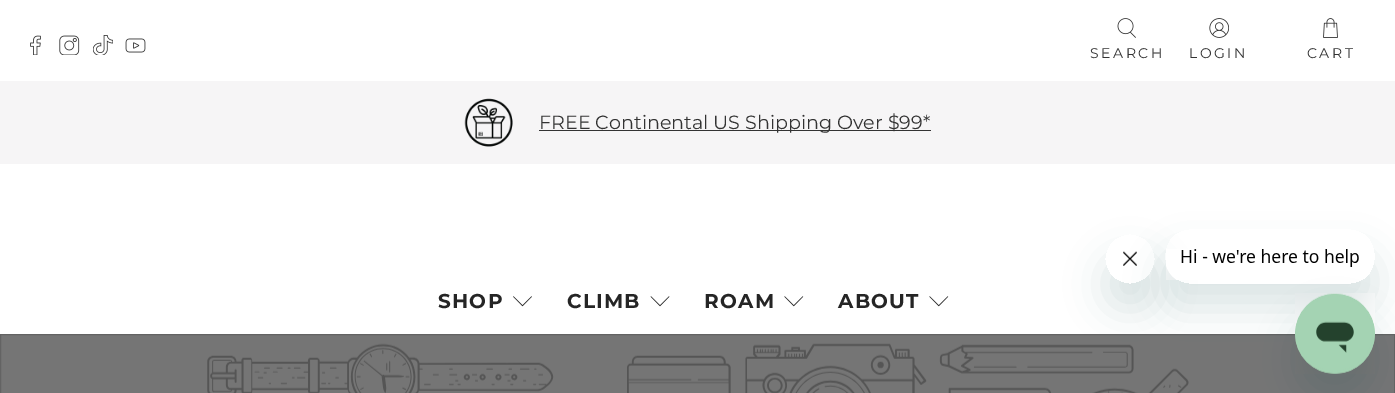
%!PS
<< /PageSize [1395 393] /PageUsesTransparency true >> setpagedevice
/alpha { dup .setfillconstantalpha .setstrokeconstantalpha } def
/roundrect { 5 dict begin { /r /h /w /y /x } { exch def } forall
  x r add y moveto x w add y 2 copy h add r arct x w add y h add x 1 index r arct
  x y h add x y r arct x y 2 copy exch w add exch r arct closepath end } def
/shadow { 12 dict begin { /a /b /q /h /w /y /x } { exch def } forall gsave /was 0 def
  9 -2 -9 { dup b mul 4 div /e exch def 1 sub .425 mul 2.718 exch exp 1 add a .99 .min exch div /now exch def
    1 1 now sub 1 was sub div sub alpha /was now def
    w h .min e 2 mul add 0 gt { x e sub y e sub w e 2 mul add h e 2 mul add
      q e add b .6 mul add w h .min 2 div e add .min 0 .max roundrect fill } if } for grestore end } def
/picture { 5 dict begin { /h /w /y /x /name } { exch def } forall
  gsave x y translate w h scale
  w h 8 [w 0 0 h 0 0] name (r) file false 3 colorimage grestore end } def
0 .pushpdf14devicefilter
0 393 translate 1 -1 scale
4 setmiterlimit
1 setgray
0 0 1395 393 rectfill
(img1.rgb) 30 35 11 20 picture
(img2.rgb) 59 35 21 20 picture
(img3.rgb) 93 35 20 20 picture
(img4.rgb) 125 38 21 15 picture
(img5.rgb) 1117 18 19 20 picture
/Montserrat-Regular [14 0 0 -14 0 0] selectfont
0.2 setgray
1090 58 moveto 2.5 0 (SEARCH) ashow
(img6.rgb) 1209 18 20 20 picture
1189 58 moveto 2.5 0 (LOGIN) ashow
(img7.rgb) 1323 18 15 20 picture
1307 58 moveto 2.5 0 (CART) ashow
0.965 0.961 0.965 setrgbcolor
0 81 1395 83 rectfill
(img8.rgb) 464 98 49 49 picture
0.2 setgray
539 130 392 1 rectfill
/Montserrat-Regular [19.1 0 0 -19.1 0 0] selectfont
539 129 moveto (FREE Continental US Shipping Over $99*) show
/Montserrat-Bold [20 0 0 -20 0 0] selectfont
0.145 setgray
438 308 moveto 1.25 0 (SHOP) ashow
(img9.rgb) 513 296 19 11 picture
567 308 moveto 1.25 0 (CLIMB) ashow
(img10.rgb) 650 296 20 11 picture
704 308 moveto 1.25 0 (ROAM) ashow
(img11.rgb) 784 296 20 11 picture
838 308 moveto 1.25 0 (ABOUT) ashow
(img11.rgb) 929 296 20 11 picture
0.459 setgray
newpath 0.5 334.5 moveto 1394.5 334.5 lineto 1394.5 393.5 lineto 0.5 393.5 lineto closepath gsave fill grestore
0.388 setgray
stroke
(img15.rgb) 207 343 982 50 picture
gsave
newpath 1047 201 moveto 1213 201 lineto 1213 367 lineto 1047 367 lineto closepath 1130 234 moveto 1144 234 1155 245 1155 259 curveto 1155 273 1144 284 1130 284 curveto 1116 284 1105 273 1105 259 curveto 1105 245 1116 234 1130 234 curveto closepath eoclip newpath
0.09 0.286 0.302 setrgbcolor
1105 259 50 50 25 19 0.15 shadow
grestore
(img13.rgb) 1123 251 14 15 picture
gsave
newpath 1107 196 moveto 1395 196 lineto 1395 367 lineto 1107 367 lineto closepath 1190 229 moveto 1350 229 lineto 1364 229 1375 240 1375 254 curveto 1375 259 lineto 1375 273 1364 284 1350 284 curveto 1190 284 lineto 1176 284 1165 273 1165 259 curveto 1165 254 lineto 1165 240 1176 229 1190 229 curveto closepath eoclip newpath
0.09 0.286 0.302 setrgbcolor
1165 254 210 55 25 19 0.15 shadow
grestore
(img12.rgb) 1166 249 193 31 picture
0.09 0.286 0.302 setrgbcolor
1295 319 80 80 40 19 0.15 shadow
(img14.rgb) 1295 293 80 81 picture
.poppdf14devicefilter showpage
